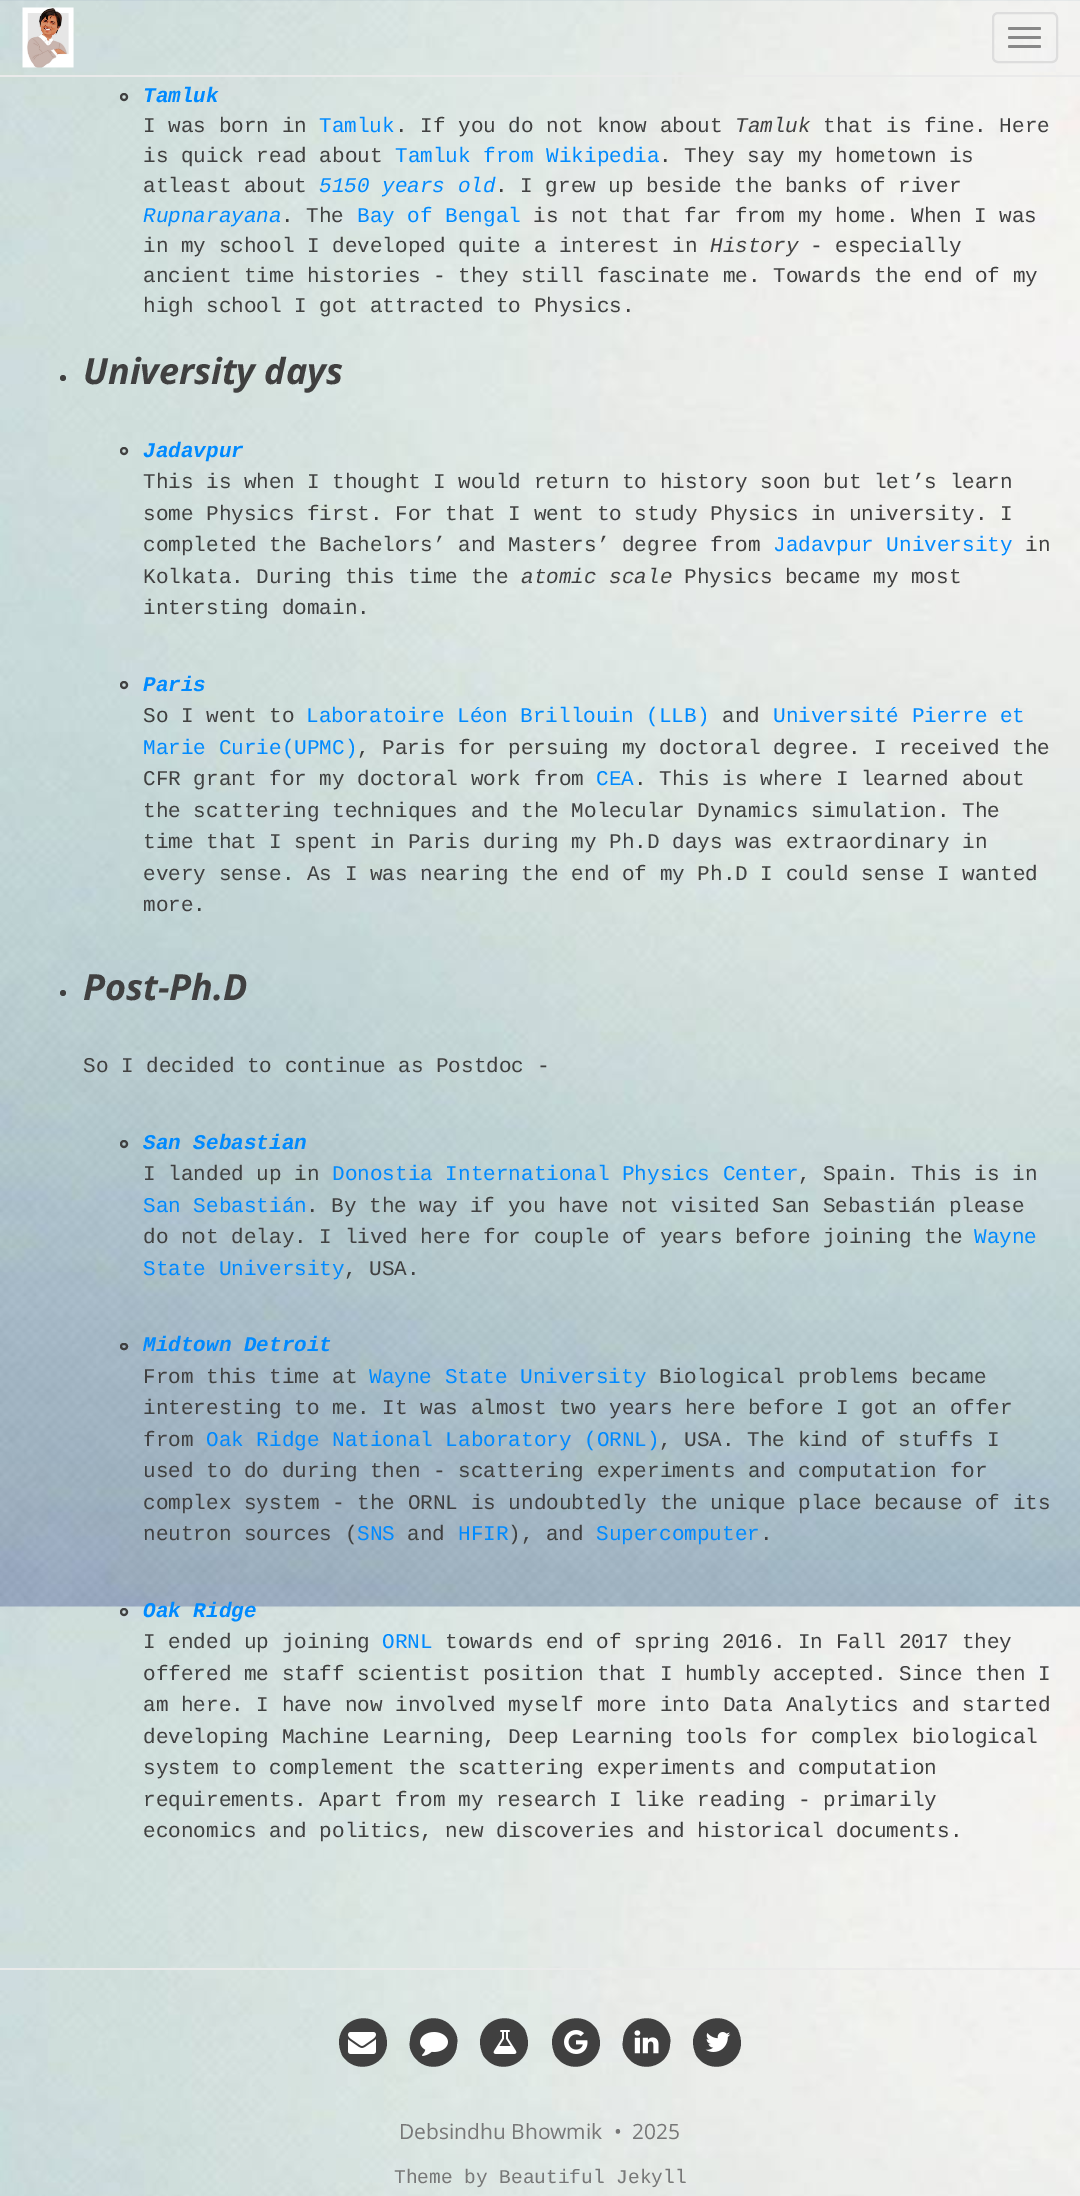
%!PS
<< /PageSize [1080 2196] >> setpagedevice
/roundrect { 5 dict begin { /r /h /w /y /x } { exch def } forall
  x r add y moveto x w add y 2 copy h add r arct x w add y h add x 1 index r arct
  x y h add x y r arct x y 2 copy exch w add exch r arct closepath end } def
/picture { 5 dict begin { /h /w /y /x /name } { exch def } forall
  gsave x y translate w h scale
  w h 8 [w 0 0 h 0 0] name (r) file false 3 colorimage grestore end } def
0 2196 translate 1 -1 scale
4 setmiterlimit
1 setgray
0 0 1080 2196 rectfill
(img1.rgb) 0 77 1080 1891 picture
(img2.rgb) 0 0 1080 75 picture
0.918 setgray
0 75 1080 2 rectfill
(img3.rgb) 22 7 52 61 picture
0.867 setgray
2 setlinewidth
993 13 64 49 5 roundrect stroke
0.533 setgray
1008 27 33 3 1.5 roundrect fill
1008 36 33 3 1.5 roundrect fill
1008 45 33 3 1.5 roundrect fill
0.251 setgray
newpath 124 97 3 0 360 arc closepath stroke
/LiberationMono-BoldItalic [21 0 0 -21 0 0] selectfont
0 0.541 1 setrgbcolor
143 102 moveto (Tamluk) show
/LiberationMono-Regular [21 0 0 -21 0 0] selectfont
0.251 setgray
143 132 moveto (I was born in) show
0 0.541 1 setrgbcolor
319 132 moveto (Tamluk) show
0.251 setgray
395 132 moveto (. If you do not know about) show
/LiberationMono-Italic [21 0 0 -21 0 0] selectfont
735 132 moveto (Tamluk) show
/LiberationMono-Regular [21 0 0 -21 0 0] selectfont
823 132 moveto (that is fine. Here) show
143 162 moveto (is quick read about) show
0 0.541 1 setrgbcolor
395 162 moveto (Tamluk from Wikipedia) show
0.251 setgray
659 162 moveto (. They say my hometown is) show
143 192 moveto (atleast about) show
/LiberationMono-Italic [21 0 0 -21 0 0] selectfont
0 0.541 1 setrgbcolor
319 192 moveto (5150 years old) show
/LiberationMono-Regular [21 0 0 -21 0 0] selectfont
0.251 setgray
495 192 moveto (. I grew up beside the banks of river) show
/LiberationMono-Italic [21 0 0 -21 0 0] selectfont
0 0.541 1 setrgbcolor
143 222 moveto (Rupnarayana) show
/LiberationMono-Regular [21 0 0 -21 0 0] selectfont
0.251 setgray
281 222 moveto (. The) show
0 0.541 1 setrgbcolor
357 222 moveto (Bay of Bengal) show
0.251 setgray
533 222 moveto (is not that far from my home. When I was) show
143 252 moveto (in my school I developed quite a interest in) show
/LiberationMono-Italic [21 0 0 -21 0 0] selectfont
710 252 moveto (History) show
/LiberationMono-Regular [21 0 0 -21 0 0] selectfont
810 252 moveto (- especially) show
143 282 moveto (ancient time histories - they still fascinate me. Towards the end of my) show
143 312 moveto (high school I got attracted to Physics.) show
newpath 63 378 3 0 360 arc closepath fill
/OpenSans-BoldItalic [36 0 0 -36 0 0] selectfont
83 384 moveto (University days) show
newpath 124 451 3 0 360 arc closepath stroke
/LiberationMono-BoldItalic [21 0 0 -21 0 0] selectfont
0 0.541 1 setrgbcolor
143 457 moveto (Jadavpur) show
/LiberationMono-Regular [21 0 0 -21 0 0] selectfont
0.251 setgray
143 488 moveto (This is when I thought I would return to history soon but let’s learn) show
143 520 moveto (some Physics first. For that I went to study Physics in university. I) show
143 551 moveto (completed the Bachelors’ and Masters’ degree from) show
0 0.541 1 setrgbcolor
773 551 moveto (Jadavpur University) show
0.251 setgray
1025 551 moveto (in) show
143 583 moveto (Kolkata. During this time the) show
/LiberationMono-Italic [21 0 0 -21 0 0] selectfont
521 583 moveto (atomic scale) show
/LiberationMono-Regular [21 0 0 -21 0 0] selectfont
684 583 moveto (Physics became my most) show
143 614 moveto (intersting domain.) show
newpath 124 685 3 0 360 arc closepath stroke
/LiberationMono-BoldItalic [21 0 0 -21 0 0] selectfont
0 0.541 1 setrgbcolor
143 691 moveto (Paris) show
/LiberationMono-Regular [21 0 0 -21 0 0] selectfont
0.251 setgray
143 722 moveto (So I went to) show
0 0.541 1 setrgbcolor
306 722 moveto (Laboratoire Léon Brillouin \(LLB\)) show
0.251 setgray
722 722 moveto (and) show
0 0.541 1 setrgbcolor
773 722 moveto (Université Pierre et) show
143 754 moveto (Marie Curie\(UPMC\)) show
0.251 setgray
357 754 moveto (, Paris for persuing my doctoral degree. I received the) show
143 785 moveto (CFR grant for my doctoral work from) show
0 0.541 1 setrgbcolor
596 785 moveto (CEA) show
0.251 setgray
634 785 moveto (. This is where I learned about) show
143 817 moveto (the scattering techniques and the Molecular Dynamics simulation. The) show
143 848 moveto (time that I spent in Paris during my Ph.D days was extraordinary in) show
143 880 moveto (every sense. As I was nearing the end of my Ph.D I could sense I wanted) show
143 911 moveto (more.) show
newpath 63 993 3 0 360 arc closepath fill
/OpenSans-BoldItalic [36 0 0 -36 0 0] selectfont
83 1000 moveto (Post-Ph.D) show
/LiberationMono-Regular [21 0 0 -21 0 0] selectfont
83 1072 moveto (So I decided to continue as Postdoc -) show
newpath 124 1144 3 0 360 arc closepath stroke
/LiberationMono-BoldItalic [21 0 0 -21 0 0] selectfont
0 0.541 1 setrgbcolor
143 1149 moveto (San Sebastian) show
/LiberationMono-Regular [21 0 0 -21 0 0] selectfont
0.251 setgray
143 1180 moveto (I landed up in) show
0 0.541 1 setrgbcolor
332 1180 moveto (Donostia International Physics Center) show
0.251 setgray
798 1180 moveto (, Spain. This is in) show
0 0.541 1 setrgbcolor
143 1212 moveto (San Sebastián) show
0.251 setgray
306 1212 moveto (. By the way if you have not visited San Sebastián please) show
143 1243 moveto (do not delay. I lived here for couple of years before joining the) show
0 0.541 1 setrgbcolor
974 1243 moveto (Wayne) show
143 1275 moveto (State University) show
0.251 setgray
344 1275 moveto (, USA.) show
121 1344 6 5 2.5 roundrect stroke
/LiberationMono-BoldItalic [21 0 0 -21 0 0] selectfont
0 0.541 1 setrgbcolor
143 1351 moveto (Midtown Detroit) show
/LiberationMono-Regular [21 0 0 -21 0 0] selectfont
0.251 setgray
143 1383 moveto (From this time at) show
0 0.541 1 setrgbcolor
369 1383 moveto (Wayne State University) show
0.251 setgray
659 1383 moveto (Biological problems became) show
143 1414 moveto (interesting to me. It was almost two years here before I got an offer) show
143 1446 moveto (from) show
0 0.541 1 setrgbcolor
206 1446 moveto (Oak Ridge National Laboratory \(ORNL\)) show
0.251 setgray
659 1446 moveto (, USA. The kind of stuffs I) show
143 1477 moveto (used to do during then - scattering experiments and computation for) show
143 1509 moveto (complex system - the ORNL is undoubtedly the unique place because of its) show
143 1540 moveto (neutron sources \() show
0 0.541 1 setrgbcolor
357 1540 moveto (SNS) show
0.251 setgray
407 1540 moveto (and) show
0 0.541 1 setrgbcolor
458 1540 moveto (HFIR) show
0.251 setgray
508 1540 moveto (\), and) show
0 0.541 1 setrgbcolor
596 1540 moveto (Supercomputer) show
0.251 setgray
760 1540 moveto (.) show
newpath 124 1612 3 0 360 arc closepath stroke
/LiberationMono-BoldItalic [21 0 0 -21 0 0] selectfont
0 0.541 1 setrgbcolor
143 1617 moveto (Oak Ridge) show
/LiberationMono-Regular [21 0 0 -21 0 0] selectfont
0.251 setgray
143 1648 moveto (I ended up joining) show
0 0.541 1 setrgbcolor
382 1648 moveto (ORNL) show
0.251 setgray
445 1648 moveto (towards end of spring 2016. In Fall 2017 they) show
143 1680 moveto (offered me staff scientist position that I humbly accepted. Since then I) show
143 1711 moveto (am here. I have now involved myself more into Data Analytics and started) show
143 1743 moveto (developing Machine Learning, Deep Learning tools for complex biological) show
143 1774 moveto (system to complement the scattering experiments and computation) show
143 1806 moveto (requirements. Apart from my research I like reading - primarily) show
143 1837 moveto (economics and politics, new discoveries and historical documents.) show
(img4.rgb) 0 1970 1080 226 picture
0.918 setgray
0 1968 1080 2 rectfill
0.251 setgray
newpath 384 2030 moveto 386 2035 387 2039 387 2044 curveto 385 2068 354 2075 342 2055 curveto 340 2050 339 2046 339 2041 curveto 341 2017 372 2010 384 2030 curveto closepath fill
(img5.rgb) 348 2032 28 22 picture
newpath 454 2030 moveto 457 2035 458 2039 457 2044 curveto 456 2068 425 2075 413 2055 curveto 410 2050 409 2046 410 2041 curveto 411 2017 442 2010 454 2030 curveto closepath fill
(img6.rgb) 420 2032 28 24 picture
newpath 525 2030 moveto 527 2035 528 2039 528 2044 curveto 526 2068 495 2075 483 2055 curveto 481 2050 480 2046 480 2041 curveto 482 2017 513 2010 525 2030 curveto closepath fill
(img7.rgb) 493 2030 24 24 picture
newpath 597 2030 moveto 599 2035 600 2039 600 2044 curveto 598 2068 567 2075 555 2055 curveto 553 2050 552 2046 552 2041 curveto 554 2017 585 2010 597 2030 curveto closepath fill
(img8.rgb) 564 2030 24 24 picture
newpath 667 2030 moveto 670 2035 671 2039 670 2044 curveto 669 2068 638 2075 626 2055 curveto 623 2050 622 2046 623 2041 curveto 624 2017 655 2010 667 2030 curveto closepath fill
(img9.rgb) 634 2030 25 24 picture
newpath 738 2030 moveto 740 2035 741 2039 741 2044 curveto 739 2068 708 2075 696 2055 curveto 694 2050 693 2046 693 2041 curveto 695 2017 726 2010 738 2030 curveto closepath fill
(img10.rgb) 705 2032 26 20 picture
/OpenSans-Regular [21 0 0 -21 0 0] selectfont
0.467 setgray
399 2139 moveto (Debsindhu Bhowmik) show
614 2139 moveto (•) show
632 2139 moveto (2025) show
/LiberationMono-Regular [19.5 0 0 -19.5 0 0] selectfont
394 2183 moveto (Theme by Beautiful Jekyll) show
showpage
